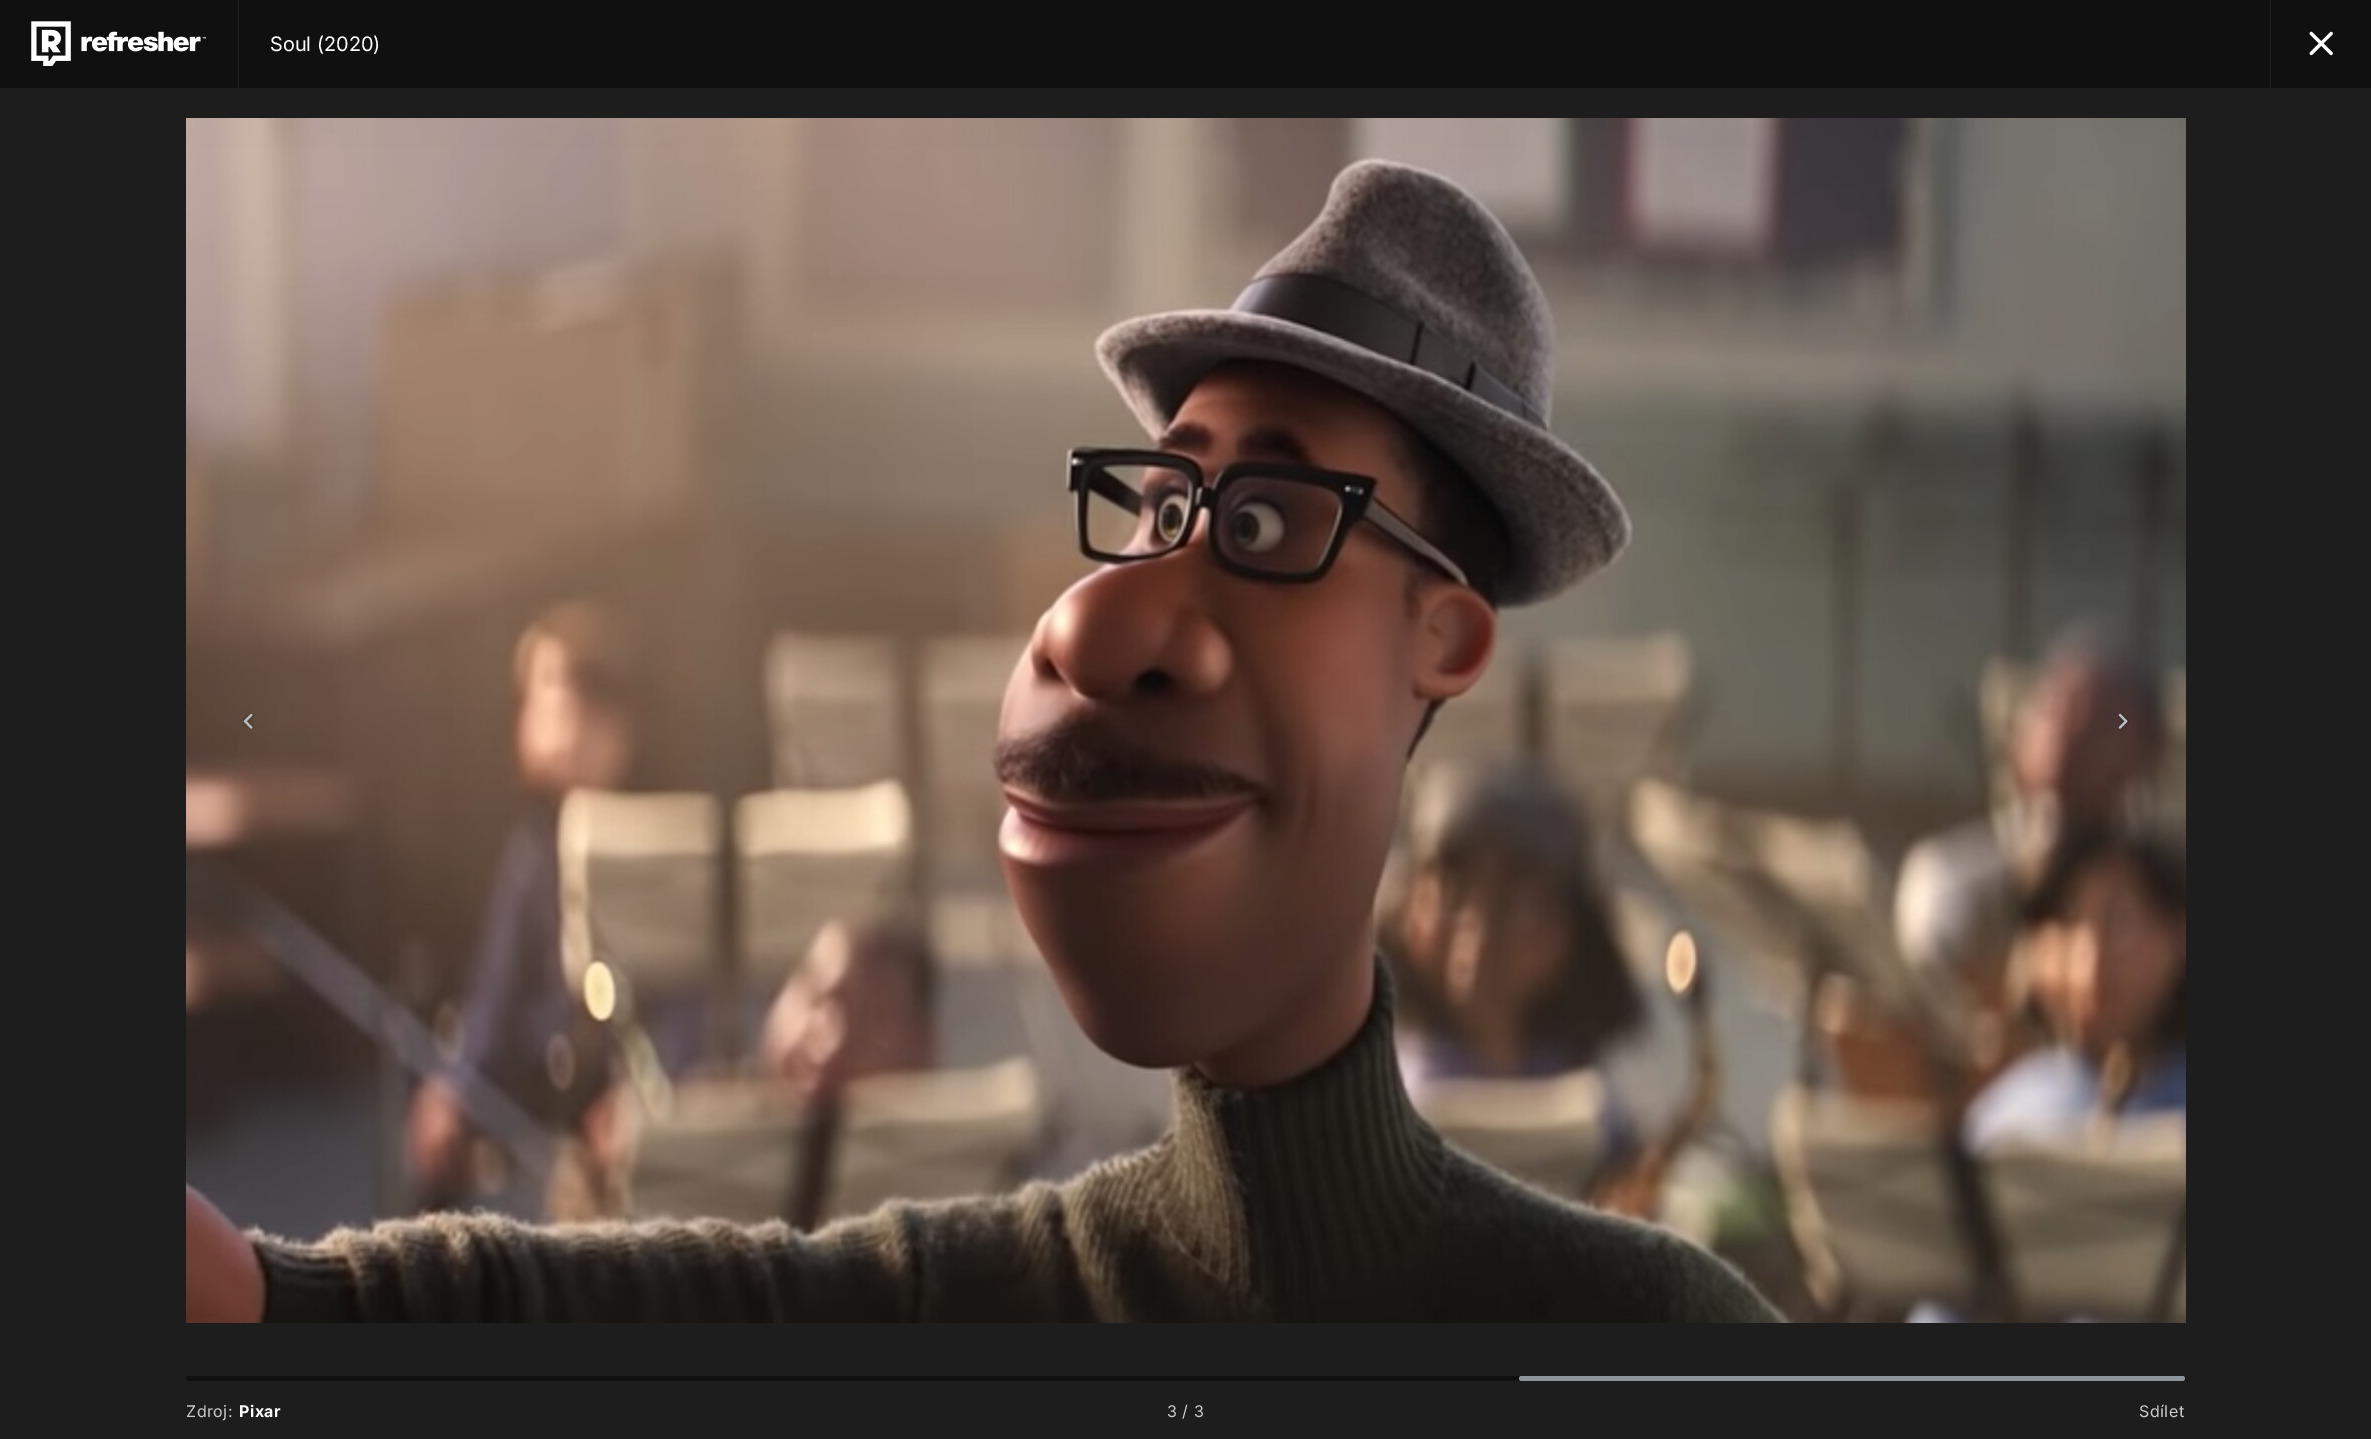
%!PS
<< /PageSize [2371 1439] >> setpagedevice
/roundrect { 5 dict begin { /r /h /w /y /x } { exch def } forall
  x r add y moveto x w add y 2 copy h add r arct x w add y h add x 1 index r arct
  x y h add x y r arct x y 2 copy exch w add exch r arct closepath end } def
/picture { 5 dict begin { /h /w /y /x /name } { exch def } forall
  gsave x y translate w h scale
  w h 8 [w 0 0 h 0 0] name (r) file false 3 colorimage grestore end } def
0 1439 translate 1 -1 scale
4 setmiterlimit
0.114 setgray
0 0 2371 1439 rectfill
0.063 setgray
0 0 2371 88 rectfill
(img1.rgb) 31 21 175 45 picture
0.125 setgray
238 0 1 88 rectfill
/Inter-Regular [20 0 0 -20 0 0] selectfont
1 setgray
270 51 moveto (Soul \(2020\)) show
(img2.rgb) 2309 31 24 25 picture
0.125 setgray
2270 0 1 88 rectfill
(img3.rgb) 186 118 2000 1205 picture
(img4.rgb) 243 713 11 16 picture
(img5.rgb) 2118 713 11 16 picture
0.063 setgray
186 1376 2000 5 2.5 roundrect fill
0.557 0.584 0.604 setrgbcolor
1519 1376 666 5 2.5 roundrect fill
/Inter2-Regular [16 0 0 -16 0 0] selectfont
0.8 setgray
186 1417 moveto 0.5 0 (Zdroj:) ashow
/Inter-Bold [16 0 0 -16 0 0] selectfont
1 setgray
239 1417 moveto 0.5 0 (Pixar) ashow
/Inter2-Regular [16 0 0 -16 0 0] selectfont
0.8 setgray
1167 1417 moveto 0.5 0 (3 / 3) ashow
2139 1417 moveto 0.5 0 (Sdílet) ashow
showpage
